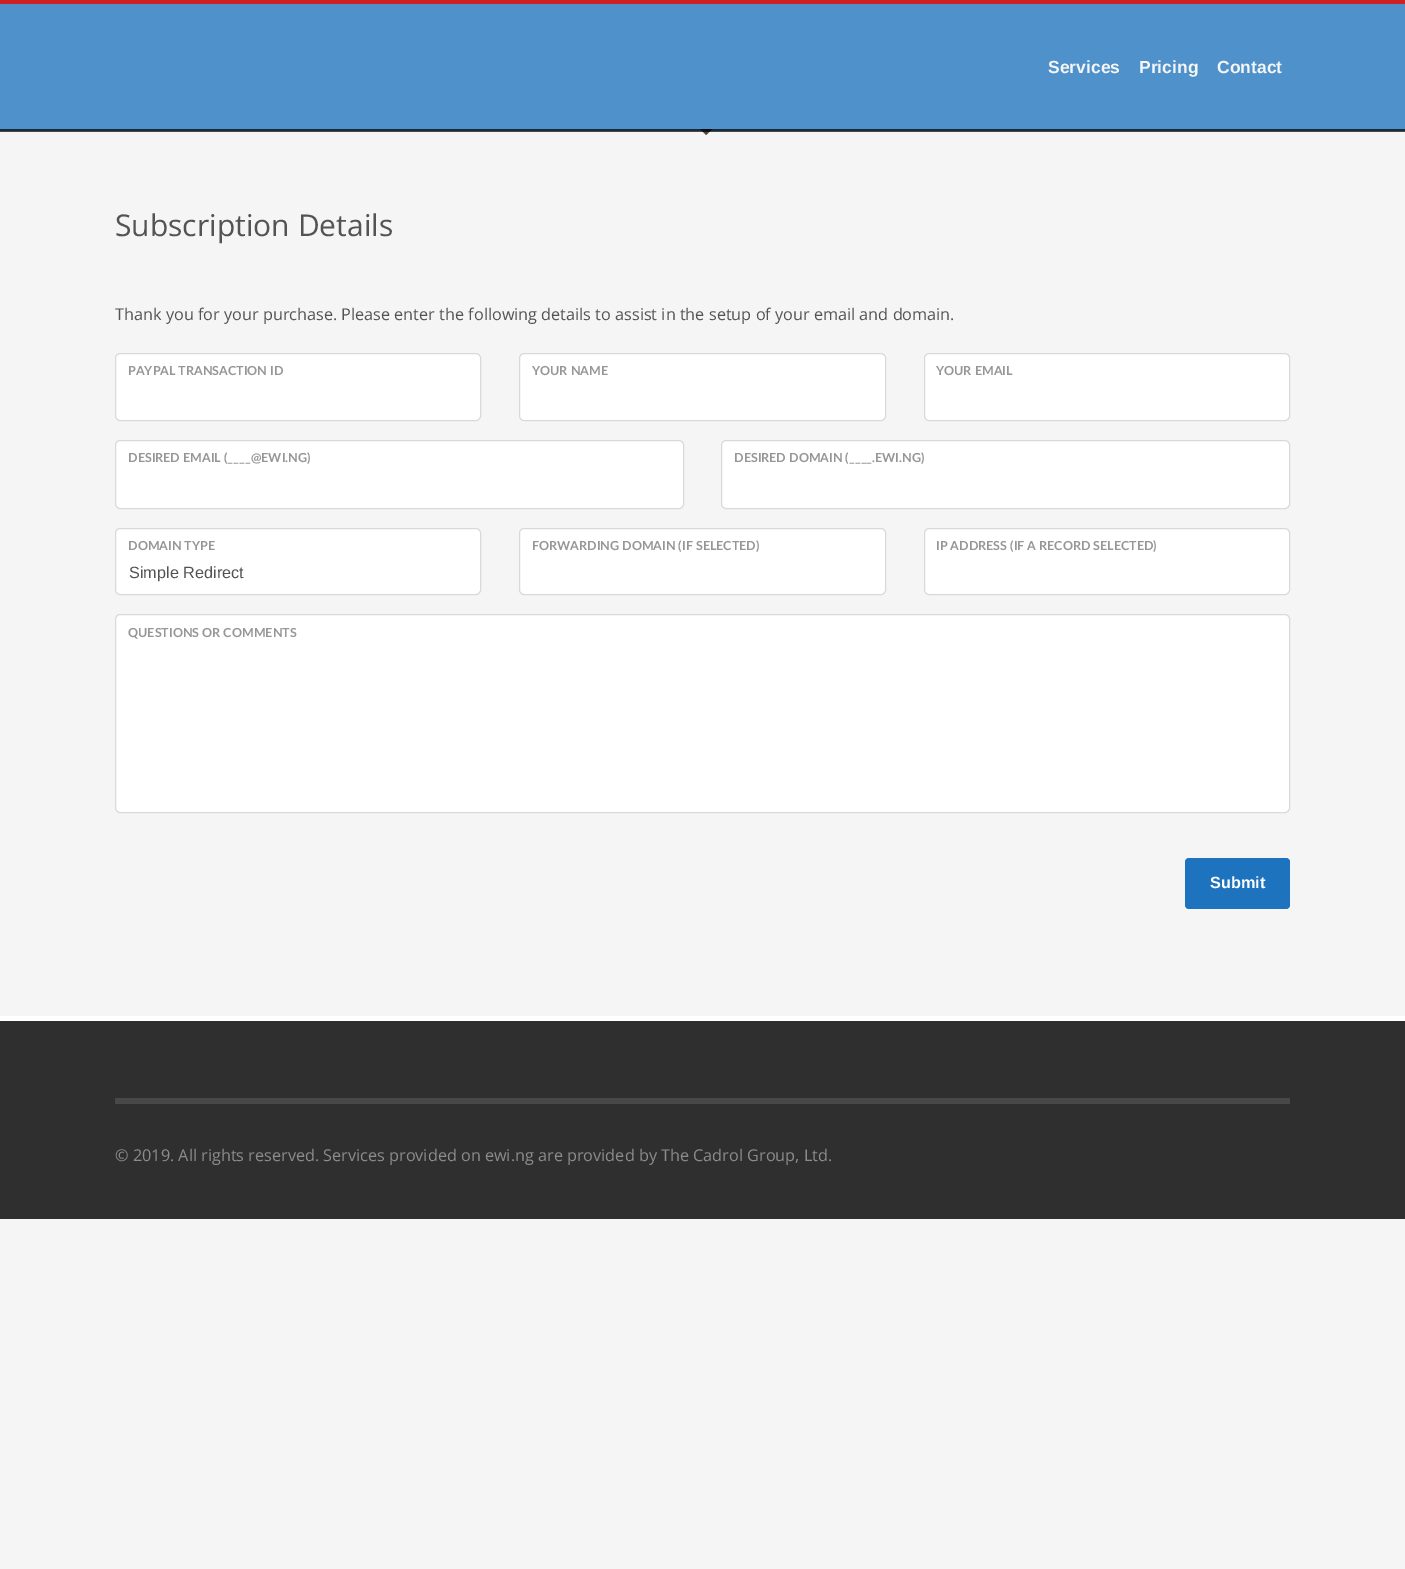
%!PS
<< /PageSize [1405 1569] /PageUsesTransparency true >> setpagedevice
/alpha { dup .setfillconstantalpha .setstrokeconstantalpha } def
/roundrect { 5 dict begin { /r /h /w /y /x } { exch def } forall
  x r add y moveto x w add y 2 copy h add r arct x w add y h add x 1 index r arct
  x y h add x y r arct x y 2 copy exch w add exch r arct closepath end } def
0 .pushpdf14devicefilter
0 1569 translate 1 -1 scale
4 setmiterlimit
0.961 setgray
0 0 1405 1569 rectfill
0.29 setgray
0 131 1405 1 rectfill
0.31 0.569 0.796 setrgbcolor
0 4 1405 125 rectfill
0.094 0.173 0.239 setrgbcolor
0 129 1405 2 rectfill
0.804 0.129 0.133 setrgbcolor
0 0 1405 4 rectfill
/LiberationSans-Bold [17.5 0 0 -17.5 0 0] selectfont
0.961 setgray
1048 73 moveto (Services) show
1139 73 moveto (Pricing) show
1217 73 moveto (Contact) show
0.7 alpha
0 setgray
newpath 700 129 moveto 712.5 129 lineto 706 135 lineto closepath fill
/OpenSans-Regular [30 0 0 -30 0 0] selectfont
1 alpha
0.325 setgray
115 236 moveto (Subscription Details) show
/OpenSans-Regular [16.25 0 0 -16.25 0 0] selectfont
115 320 moveto (Thank you for your purchase. Please enter the following details to assist in the setup of your email and domain.) show
1 setgray
115.5 353.5 365 67 4.5 roundrect gsave fill grestore
0.851 setgray
stroke
/Lato-Bold [12.5 0 0 -12.5 0 0] selectfont
0.588 setgray
128 375 moveto (PAYPAL TRANSACTION ID) show
1 setgray
519.5 353.5 366 67 4.5 roundrect gsave fill grestore
0.851 setgray
stroke
0.588 setgray
532 375 moveto (YOUR NAME) show
1 setgray
924.5 353.5 365 67 4.5 roundrect gsave fill grestore
0.851 setgray
stroke
0.588 setgray
936 375 moveto (YOUR EMAIL) show
1 setgray
115.5 440.5 568 68 4.5 roundrect gsave fill grestore
0.851 setgray
stroke
0.588 setgray
128 462 moveto (DESIRED EMAIL \(____@EWI.NG\)) show
1 setgray
721.5 440.5 568 68 4.5 roundrect gsave fill grestore
0.851 setgray
stroke
0.588 setgray
734 462 moveto (DESIRED DOMAIN \(____.EWI.NG\)) show
1 setgray
115.5 528.5 365 66 4.5 roundrect gsave fill grestore
0.851 setgray
stroke
0.588 setgray
128 550 moveto (DOMAIN TYPE) show
/LiberationSans-Regular [16.25 0 0 -16.25 0 0] selectfont
0.325 setgray
129 578 moveto (Simple Redirect) show
1 setgray
519.5 528.5 366 66 4.5 roundrect gsave fill grestore
0.851 setgray
stroke
/Lato-Bold [12.5 0 0 -12.5 0 0] selectfont
0.588 setgray
532 550 moveto (FORWARDING DOMAIN \(IF SELECTED\)) show
1 setgray
924.5 528.5 365 66 4.5 roundrect gsave fill grestore
0.851 setgray
stroke
0.588 setgray
936 550 moveto (IP ADDRESS \(IF A RECORD SELECTED\)) show
1 setgray
115.5 614.5 1174 198 4.5 roundrect gsave fill grestore
0.851 setgray
stroke
0.588 setgray
128 637 moveto (QUESTIONS OR COMMENTS) show
0.118 0.451 0.745 setrgbcolor
1185 858 105 51 4 roundrect fill
/LiberationSans-Bold [16.25 0 0 -16.25 0 0] selectfont
1 setgray
1210 888 moveto (Submit) show
0.184 setgray
0 1021 1405 198 rectfill
1 setgray
0 1016 1405 5 rectfill
0.282 setgray
115 1098 1175 6 rectfill
/OpenSans-Regular [16.25 0 0 -16.25 0 0] selectfont
0.545 0.549 0.553 setrgbcolor
115 1161 moveto (© 2019. All rights reserved. Services provided on ewi.ng are provided by The Cadrol Group, Ltd.) show
.poppdf14devicefilter showpage
